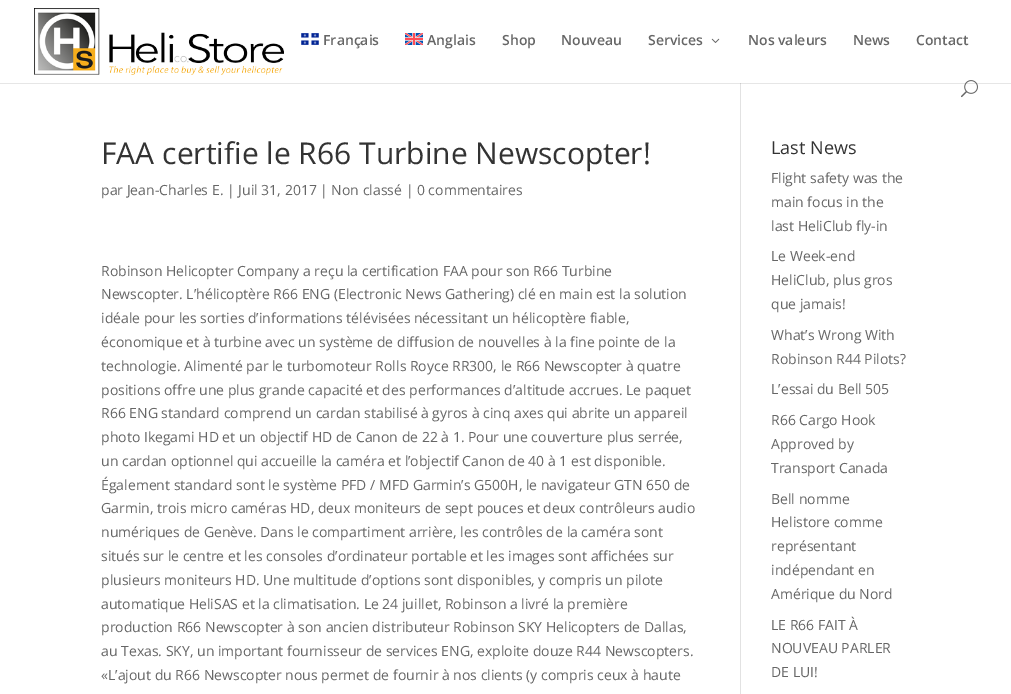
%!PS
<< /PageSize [1011 694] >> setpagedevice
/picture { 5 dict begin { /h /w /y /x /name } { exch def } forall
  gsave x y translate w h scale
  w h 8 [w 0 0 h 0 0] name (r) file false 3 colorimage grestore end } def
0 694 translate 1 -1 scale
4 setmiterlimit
1 setgray
0 0 1011 694 rectfill
0.902 setgray
0 83 1011 1 rectfill
0.886 setgray
740 80 1 614 rectfill
1 setgray
740 80 1 3 rectfill
(img1.rgb) 34 8 250 67 picture
(img2.rgb) 301 33 18 12 picture
/OpenSans-SemiBold [14 0 0 -14 0 0] selectfont
0.4 setgray
323 45 moveto (Français) show
(img3.rgb) 405 33 18 12 picture
427 45 moveto (Anglais) show
502 45 moveto (Shop) show
561 45 moveto (Nouveau) show
648 45 moveto (Services) show
(img4.rgb) 711 38 9 5 picture
748 45 moveto (Nos valeurs) show
853 45 moveto (News) show
916 45 moveto (Contact) show
(img5.rgb) 961 80 17 18 picture
0.796 setgray
740 83 1 1 rectfill
/OpenSans-Regular [30 0 0 -30 0 0] selectfont
0.2 setgray
101 164 moveto (FAA certifie le R66 Turbine Newscopter!) show
/OpenSans-Regular [14 0 0 -14 0 0] selectfont
0.4 setgray
101 195 moveto (par Jean-Charles E. | Juil 31, 2017 | Non classé | 0 commentaires) show
101 276 moveto (Robinson Helicopter Company a reçu la certification FAA pour son R66 Turbine) show
101 299 moveto (Newscopter. L’hélicoptère R66 ENG \(Electronic News Gathering\) clé en main est la solution) show
101 323 moveto (idéale pour les sorties d’informations télévisées nécessitant un hélicoptère fiable,) show
101 347 moveto (économique et à turbine avec un système de diffusion de nouvelles à la fine pointe de la) show
101 371 moveto (technologie. Alimenté par le turbomoteur Rolls Royce RR300, le R66 Newscopter à quatre) show
101 395 moveto (positions offre une plus grande capacité et des performances d’altitude accrues. Le paquet) show
101 418 moveto (R66 ENG standard comprend un cardan stabilisé à gyros à cinq axes qui abrite un appareil) show
101 442 moveto (photo Ikegami HD et un objectif HD de Canon de 22 à 1. Pour une couverture plus serrée,) show
101 466 moveto (un cardan optionnel qui accueille la caméra et l’objectif Canon de 40 à 1 est disponible.) show
101 490 moveto (Également standard sont le système PFD / MFD Garmin’s G500H, le navigateur GTN 650 de) show
101 513 moveto (Garmin, trois micro caméras HD, deux moniteurs de sept pouces et deux contrôleurs audio) show
101 537 moveto (numériques de Genève. Dans le compartiment arrière, les contrôles de la caméra sont) show
101 561 moveto (situés sur le centre et les consoles d’ordinateur portable et les images sont affichées sur) show
101 585 moveto (plusieurs moniteurs HD. Une multitude d’options sont disponibles, y compris un pilote) show
101 609 moveto (automatique HeliSAS et la climatisation. Le 24 juillet, Robinson a livré la première) show
101 632 moveto (production R66 Newscopter à son ancien distributeur Robinson SKY Helicopters de Dallas,) show
101 656 moveto (au Texas. SKY, un important fournisseur de services ENG, exploite douze R44 Newscopters.) show
101 680 moveto («L’ajout du R66 Newscopter nous permet de fournir à nos clients \(y compris ceux à haute) show
/OpenSans-Regular [18 0 0 -18 0 0] selectfont
0.2 setgray
771 154 moveto (Last News) show
/OpenSans-Regular [14 0 0 -14 0 0] selectfont
0.4 setgray
771 183 moveto (Flight safety was the) show
771 207 moveto (main focus in the) show
771 231 moveto (last HeliClub fly-in) show
771 261 moveto (Le Week-end) show
771 285 moveto (HeliClub, plus gros) show
771 309 moveto (que jamais!) show
771 340 moveto (What’s Wrong With) show
771 364 moveto (Robinson R44 Pilots?) show
771 394 moveto (L’essai du Bell 505) show
771 425 moveto (R66 Cargo Hook) show
771 449 moveto (Approved by) show
771 473 moveto (Transport Canada) show
771 504 moveto (Bell nomme) show
771 527 moveto (Helistore comme) show
771 551 moveto (représentant) show
771 575 moveto (indépendant en) show
771 599 moveto (Amérique du Nord) show
771 630 moveto (LE R66 FAIT À) show
771 653 moveto (NOUVEAU PARLER) show
771 677 moveto (DE LUI!) show
showpage
